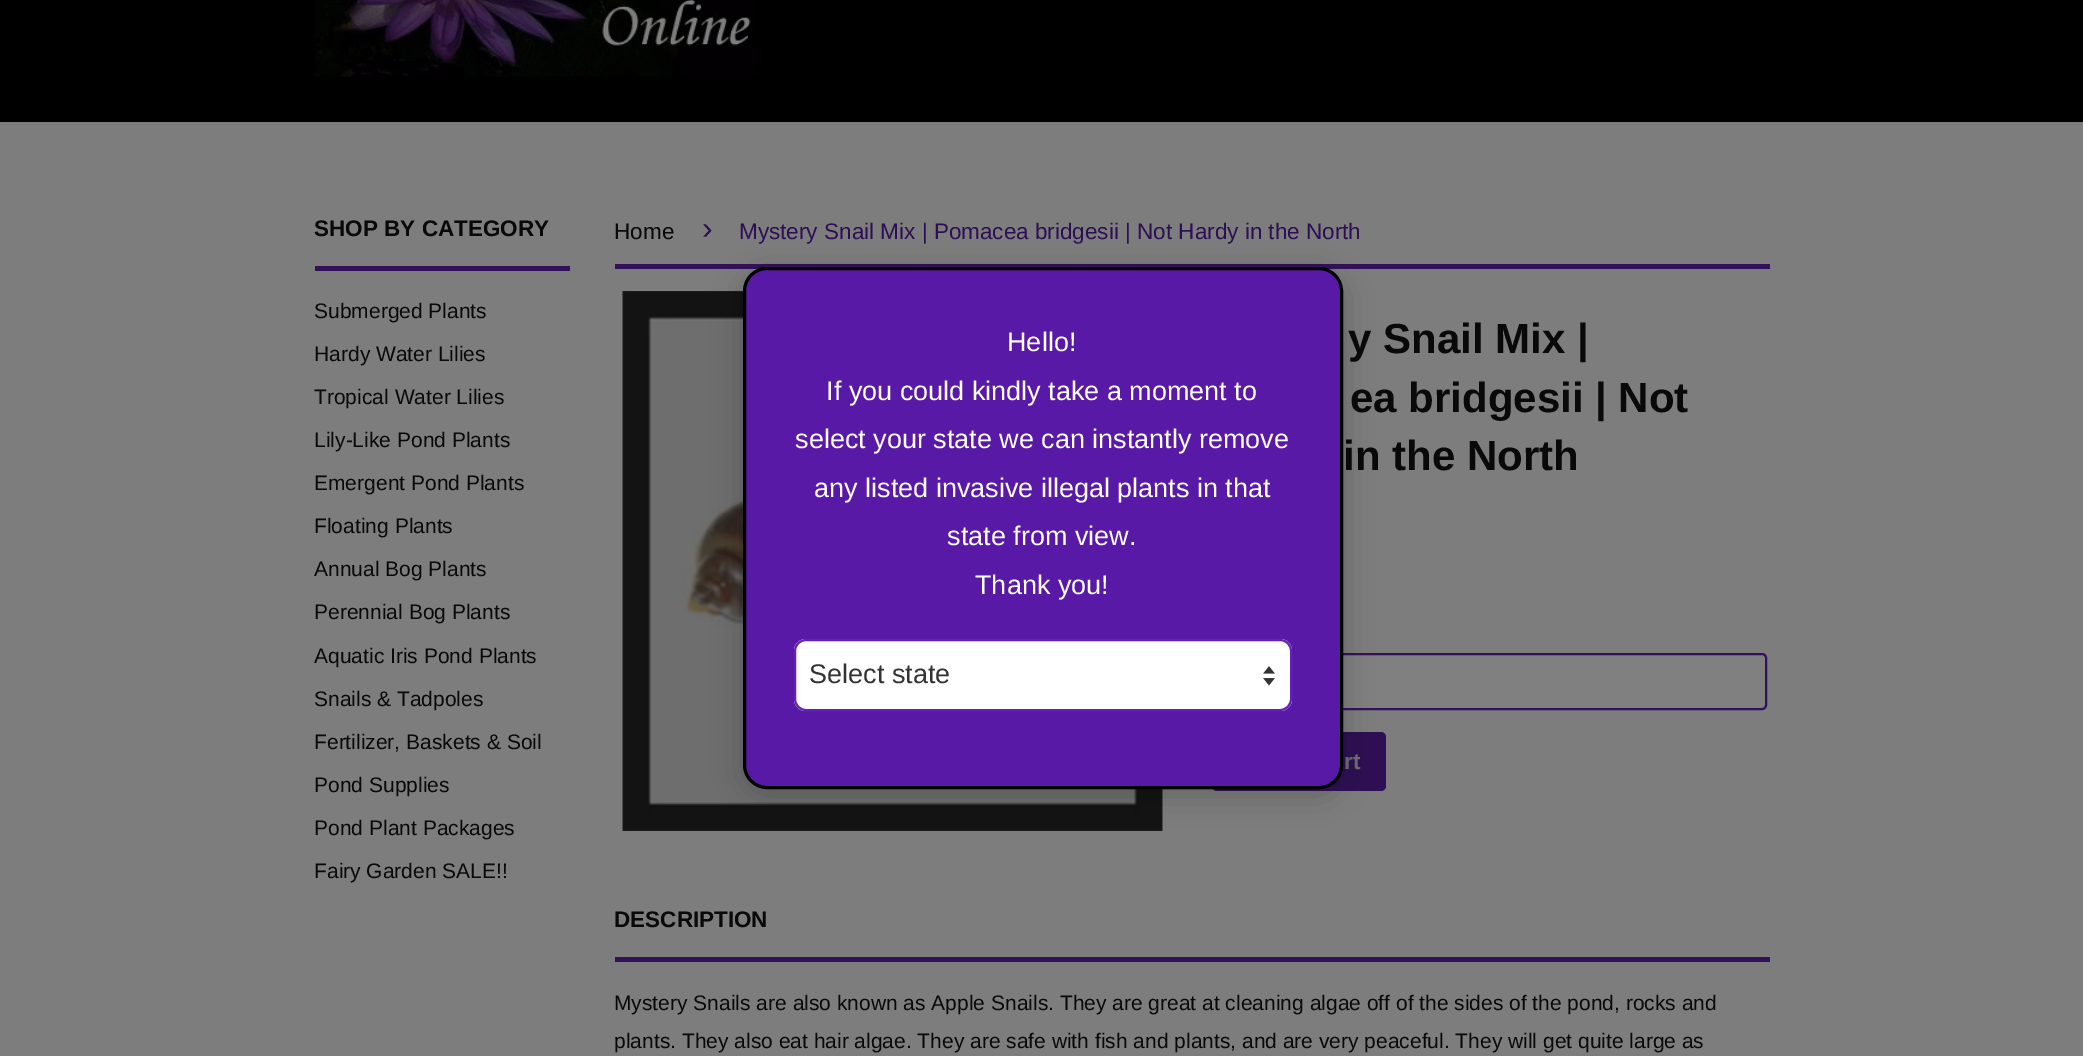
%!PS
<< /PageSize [2083 1056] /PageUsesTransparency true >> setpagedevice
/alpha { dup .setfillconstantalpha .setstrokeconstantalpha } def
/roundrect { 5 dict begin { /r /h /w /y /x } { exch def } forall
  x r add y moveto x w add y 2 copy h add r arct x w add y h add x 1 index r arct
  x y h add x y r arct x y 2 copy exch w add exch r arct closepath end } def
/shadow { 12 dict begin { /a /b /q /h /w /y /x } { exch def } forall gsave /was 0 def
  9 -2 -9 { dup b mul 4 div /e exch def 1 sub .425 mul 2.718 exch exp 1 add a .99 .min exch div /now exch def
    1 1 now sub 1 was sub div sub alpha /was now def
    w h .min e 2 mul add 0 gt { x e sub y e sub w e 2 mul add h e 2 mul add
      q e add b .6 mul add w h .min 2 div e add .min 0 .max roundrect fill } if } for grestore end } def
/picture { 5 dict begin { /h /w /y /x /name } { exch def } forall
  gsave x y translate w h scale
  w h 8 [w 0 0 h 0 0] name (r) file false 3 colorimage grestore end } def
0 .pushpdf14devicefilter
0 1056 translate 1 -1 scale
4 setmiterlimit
0.494 0.49 0.49 setrgbcolor
0 0 2083 1056 rectfill
0 setgray
0 0 2083 122 rectfill
(img1.rgb) 315 0 443 77 picture
0.196 0.067 0.357 setrgbcolor
315 266 255 5 rectfill
/LiberationSans-Bold [22.5 0 0 -22.5 0 0] selectfont
0.035 setgray
314 236 moveto (SHOP BY CATEGORY) show
/LiberationSans-Regular [21 0 0 -21 0 0] selectfont
314 318 moveto (Submerged Plants) show
314 361 moveto (Hardy Water Lilies) show
314 404 moveto (Tropical Water Lilies) show
314 447 moveto (Lily-Like Pond Plants) show
314 490 moveto (Emergent Pond Plants) show
314 533 moveto (Floating Plants) show
314 576 moveto (Annual Bog Plants) show
314 619 moveto (Perennial Bog Plants) show
314 663 moveto (Aquatic Iris Pond Plants) show
314 706 moveto (Snails & Tadpoles) show
314 749 moveto (Fertilizer, Baskets & Soil) show
314 792 moveto (Pond Supplies) show
314 835 moveto (Pond Plant Packages) show
314 878 moveto (Fairy Garden SALE!!) show
0.196 0.067 0.357 setrgbcolor
615 264 1155 5 rectfill
/LiberationSans-Regular [22.5 0 0 -22.5 0 0] selectfont
0.035 setgray
614 239 moveto (Home) show
/LiberationSans-Regular [32 0 0 -32 0 0] selectfont
0.176 0.059 0.329 setrgbcolor
702 239 moveto (›) show
/LiberationSans-Regular [22.5 0 0 -22.5 0 0] selectfont
739 239 moveto (Mystery Snail Mix | Pomacea bridgesii | Not Hardy in the North) show
(img2.rgb) 622 291 541 540 picture
/LiberationSans-Bold [42 0 0 -42 0 0] selectfont
0.035 setgray
1348 353 moveto (y Snail Mix |) show
1350 412 moveto (ea bridgesii | Not) show
1343 470 moveto (in the North) show
0.502 setgray
1213 654 553 55 4 roundrect gsave fill grestore
0.196 0.067 0.357 setrgbcolor
2 setlinewidth
stroke
0.176 0.059 0.329 setrgbcolor
1212 732 174 59 5 roundrect fill
/LiberationSans-Bold [22.5 0 0 -22.5 0 0] selectfont
0.431 setgray
1344 769 moveto (rt) show
0.196 0.067 0.357 setrgbcolor
615 957 1155 5 rectfill
0.035 setgray
614 927 moveto (DESCRIPTION) show
/LiberationSans-Regular [21 0 0 -21 0 0] selectfont
614 1010 moveto (Mystery Snails are also known as Apple Snails. They are great at cleaning algae off of the sides of the pond, rocks and) show
614 1048 moveto (plants. They also eat hair algae. They are safe with fish and plants, and are very peaceful. They will get quite large as) show
0 setgray
743 273 600 522 24 15 0.2 shadow
0.341 0.098 0.651 setrgbcolor
744.5 268.5 597 519 22.5 roundrect gsave fill grestore
0 setgray
3 setlinewidth
stroke
/LiberationSans-Regular [27 0 0 -27 0 0] selectfont
1 setgray
1007 351 moveto (Hello!) show
826 400 moveto (If you could kindly take a moment to) show
795 448 moveto (select your state we can instantly remove) show
814 497 moveto (any listed invasive illegal plants in that) show
947 545 moveto (state from view.) show
975 594 moveto (Thank you!) show
794 639 498 72 12 roundrect fill
(img3.rgb) 1263 666 12 20 picture
0.388 0.129 0.714 setrgbcolor
2 setlinewidth
795 640 496 70 11 roundrect stroke
0.2 setgray
809 683 moveto (Select state) show
.poppdf14devicefilter showpage
